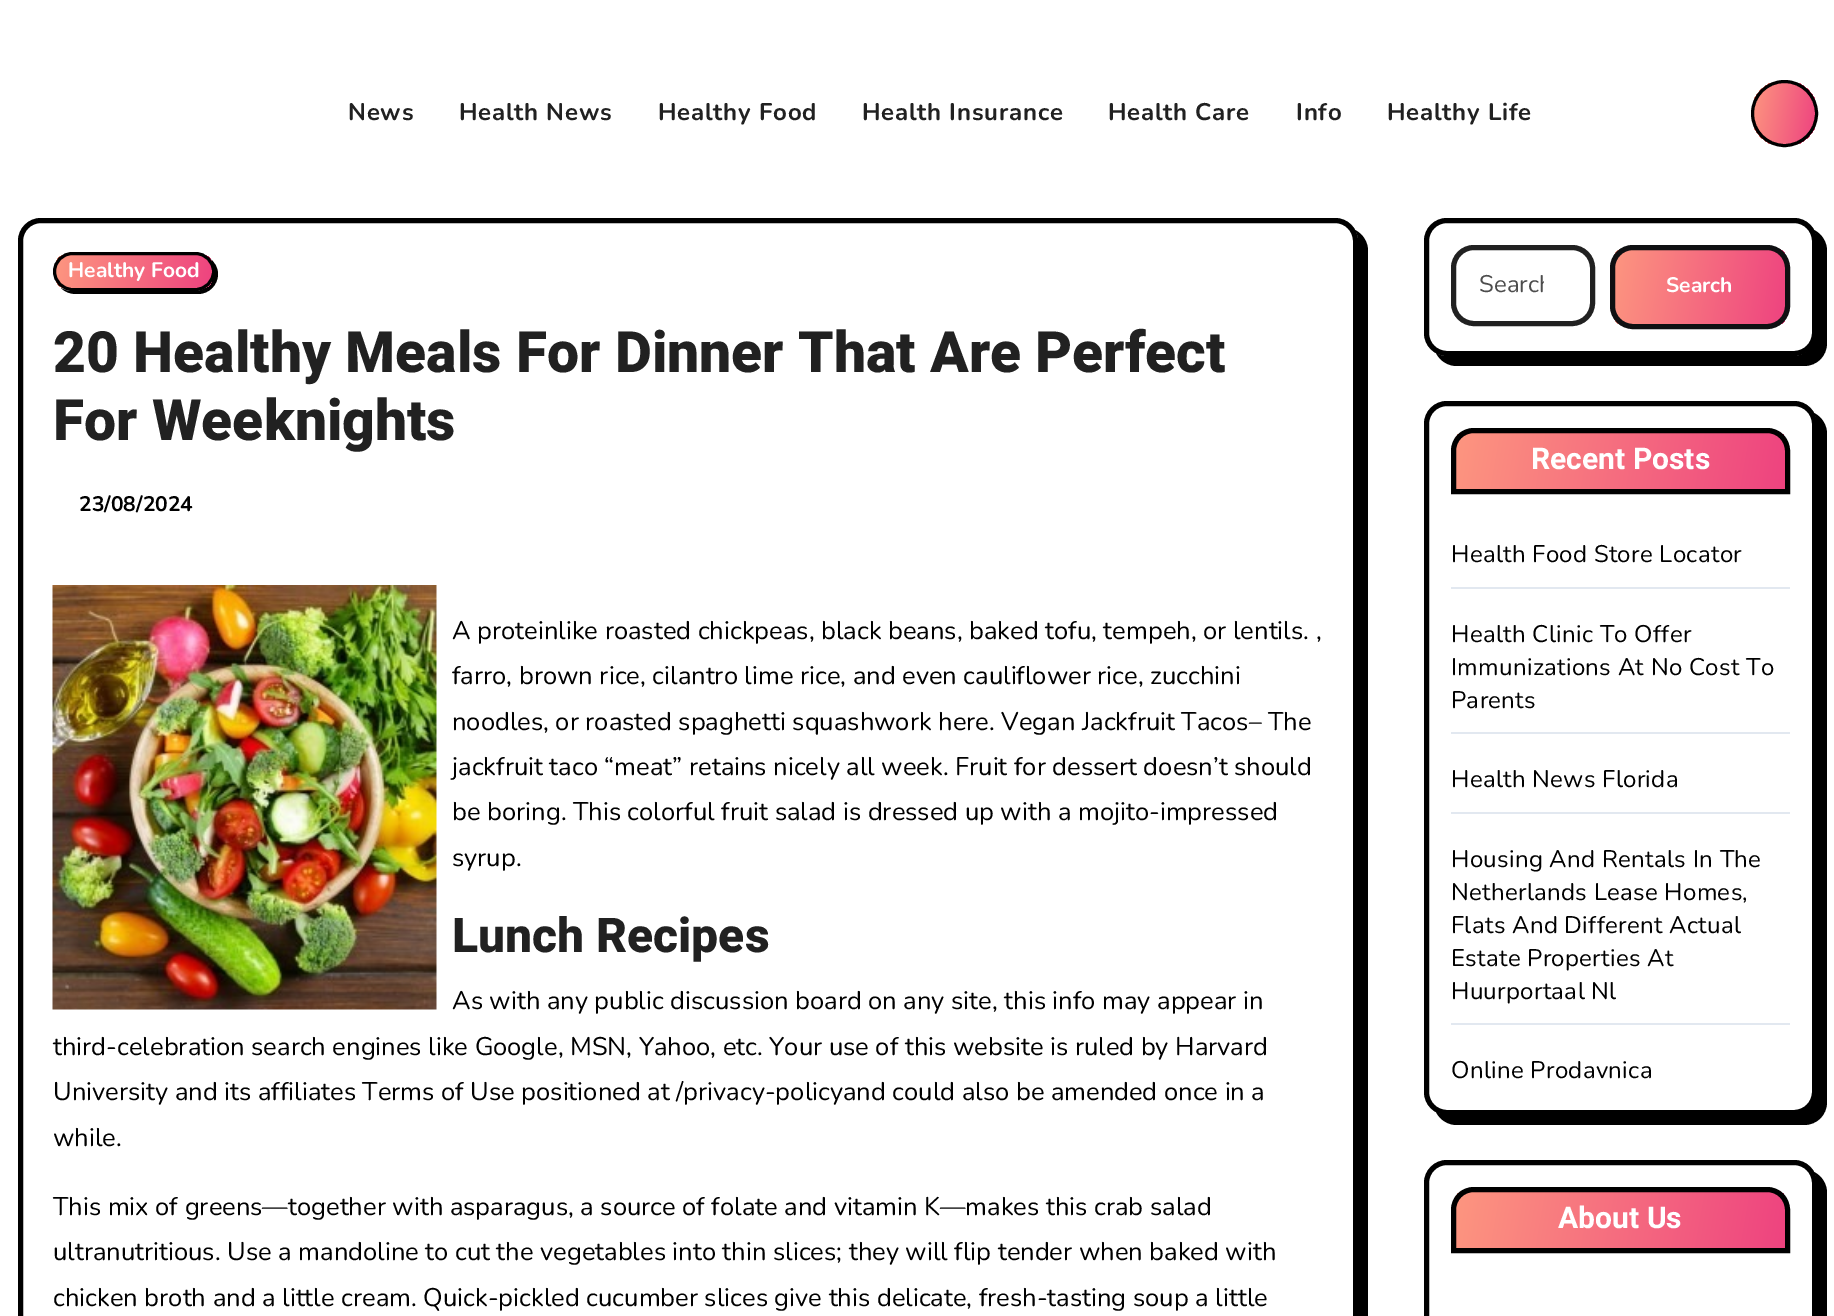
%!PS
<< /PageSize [1834 1316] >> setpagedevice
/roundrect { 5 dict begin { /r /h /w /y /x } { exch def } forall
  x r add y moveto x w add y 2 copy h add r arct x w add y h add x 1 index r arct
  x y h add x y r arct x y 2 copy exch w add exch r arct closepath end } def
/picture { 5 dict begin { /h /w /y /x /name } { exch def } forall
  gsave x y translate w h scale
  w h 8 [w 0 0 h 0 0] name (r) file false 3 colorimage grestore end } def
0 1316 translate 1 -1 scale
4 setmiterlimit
1 setgray
0 0 1834 1316 rectfill
/Nunito-Bold [24 0 0 -24 0 0] selectfont
0.129 setgray
348 120 moveto 0.75 0 (News) ashow
459 120 moveto 0.75 0 (Health News) ashow
658 120 moveto 0.75 0 (Healthy Food) ashow
862 120 moveto 0.75 0 (Health Insurance) ashow
1108 120 moveto 0.75 0 (Health Care) ashow
1296 120 moveto 0.75 0 (Info) ashow
1387 120 moveto 0.75 0 (Healthy Life) ashow
gsave
1751 80 67 67 33.5 roundrect clip newpath
gsave newpath 1754 83 moveto 1815 83 lineto 1815 144 lineto 1754 144 lineto closepath clip newpath
<< /ShadingType 2 /ColorSpace /DeviceRGB /Coords [1749 107 1819 119] /Extend [true true] /Function << /FunctionType 2 /Domain [0 1] /C0 [0.992 0.588 0.498] /C1 [0.933 0.263 0.498] /N 1 >> >> shfill grestore
grestore
0 setgray
3 setlinewidth
newpath 1784.5 113.5 32 0 360 arc closepath stroke
newpath 31 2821 moveto 35 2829 43 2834 52 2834 curveto 1345 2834 lineto 1358 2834 1368 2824 1368 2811 curveto 1368 251 lineto 1368 242 1363 234 1355 230 curveto 1357 233 1358 237 1358 240 curveto 1358 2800 lineto 1358 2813 1347 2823 1335 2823 curveto 40 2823 lineto 37 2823 34 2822 31 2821 curveto closepath fill
1 setgray
20.5 220.5 1335 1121 20.5 roundrect gsave fill grestore
0 setgray
5 setlinewidth
stroke
newpath 61 288 moveto 65 292 70 294 76 294 curveto 198 294 lineto 209 294 218 285 218 274 curveto 218 268 215 262 209 258 curveto 213 262 214 266 214 272 curveto 214 282 206 291 195 291 curveto 72 291 lineto 68 291 64 290 61 288 curveto closepath fill
gsave
53 252 162 39 19.5 roundrect clip newpath
gsave newpath 56 255 moveto 212 255 lineto 212 288 lineto 56 288 lineto closepath clip newpath
<< /ShadingType 2 /ColorSpace /DeviceRGB /Coords [55 258 212 285] /Extend [true true] /Function << /FunctionType 2 /Domain [0 1] /C0 [0.992 0.588 0.498] /C1 [0.933 0.263 0.498] /N 1 >> >> shfill grestore
grestore
3 setlinewidth
54.5 253.5 159 36 18 roundrect stroke
/Nunito-Bold [21 0 0 -21 0 0] selectfont
1 setgray
68 277 moveto (Healthy Food) show
/Heebo-ExtraBold [57 0 0 -57 0 0] selectfont
0.129 setgray
53 372 moveto (20 Healthy Meals For Dinner That Are Perfect) show
53 440 moveto (For Weeknights) show
/Nunito-Bold [21 0 0 -21 0 0] selectfont
0 setgray
79 511 moveto (23/08/2024) show
(img1.rgb) 52 585 385 425 picture
/Nunito-Regular [25.5 0 0 -25.5 0 0] selectfont
452 639 moveto (A proteinlike roasted chickpeas, black beans, baked tofu, tempeh, or lentils. ,) show
452 684 moveto (farro, brown rice, cilantro lime rice, and even cauliflower rice, zucchini) show
452 730 moveto (noodles, or roasted spaghetti squashwork here. Vegan Jackfruit Tacos– The) show
452 775 moveto (jackfruit taco “meat” retains nicely all week. Fruit for dessert doesn’t should) show
452 820 moveto (be boring. This colorful fruit salad is dressed up with a mojito-impressed) show
452 866 moveto (syrup.) show
/Heebo-ExtraBold [48 0 0 -48 0 0] selectfont
0.129 setgray
452 952 moveto (Lunch Recipes) show
/Nunito-Regular [25.5 0 0 -25.5 0 0] selectfont
0 setgray
452 1009 moveto (As with any public discussion board on any site, this info may appear in) show
53 1055 moveto (third-celebration search engines like Google, MSN, Yahoo, etc. Your use of this website is ruled by Harvard) show
53 1100 moveto (University and its affiliates Terms of Use positioned at /privacy-policyand could also be amended once in a) show
53 1146 moveto (while.) show
53 1215 moveto (This mix of greens—together with asparagus, a source of folate and vitamin K—makes this crab salad) show
53 1260 moveto (ultranutritious. Use a mandoline to cut the vegetables into thin slices; they will flip tender when baked with) show
53 1306 moveto (chicken broth and a little cream. Quick-pickled cucumber slices give this delicate, fresh-tasting soup a little) show
newpath 1436 353 moveto 1440 361 1448 366 1457 366 curveto 1804 366 lineto 1817 366 1827 356 1827 343 curveto 1827 251 lineto 1827 242 1822 234 1814 230 curveto 1816 233 1816 237 1816 240 curveto 1816 333 lineto 1816 345 1806 356 1794 356 curveto 1446 356 lineto 1443 356 1439 355 1436 353 curveto closepath fill
1 setgray
1426.5 220.5 388 133 20.5 roundrect gsave fill grestore
0 setgray
5 setlinewidth
stroke
0.129 setgray
1453.5 247.5 139 76 20.5 roundrect stroke
gsave
1479 269 65 33 rectclip
/Nunito-Regular [24 0 0 -24 0 0] selectfont
0.302 setgray
1479 292 moveto (Search) show
grestore
gsave
1610 245 180 84 23 roundrect clip newpath
gsave newpath 1614 249 moveto 1785 249 lineto 1785 324 lineto 1614 324 lineto closepath clip newpath
<< /ShadingType 2 /ColorSpace /DeviceRGB /Coords [1610 271 1789 302] /Extend [true true] /Function << /FunctionType 2 /Domain [0 1] /C0 [0.992 0.588 0.498] /C1 [0.933 0.263 0.498] /N 1 >> >> shfill grestore
grestore
0.059 0.063 0.071 setrgbcolor
1612.5 247.5 175 79 20.5 roundrect stroke
/Nunito-Bold [21 0 0 -21 0 0] selectfont
1 setgray
1666 292 moveto (Search) show
0 setgray
newpath 1436 1112 moveto 1440 1120 1448 1125 1457 1125 curveto 1804 1125 lineto 1817 1125 1827 1115 1827 1102 curveto 1827 434 lineto 1827 425 1822 417 1814 413 curveto 1816 416 1816 420 1816 423 curveto 1816 1092 lineto 1816 1104 1806 1114 1794 1114 curveto 1446 1114 lineto 1443 1114 1439 1114 1436 1112 curveto closepath fill
1 setgray
1426.5 403.5 388 709 20.5 roundrect gsave fill grestore
0 setgray
stroke
gsave
newpath 1474 428 moveto 1767 428 lineto 1779.5 428 1790 438.5 1790 451 curveto 1790 494 lineto 1451 494 lineto 1451 451 lineto 1451 438.5 1461.5 428 1474 428 curveto closepath clip newpath
gsave newpath 1455 432 moveto 1785 432 lineto 1785 489 lineto 1455 489 lineto closepath clip newpath
<< /ShadingType 2 /ColorSpace /DeviceRGB /Coords [1455 431 1785 490] /Extend [true true] /Function << /FunctionType 2 /Domain [0 1] /C0 [0.992 0.588 0.498] /C1 [0.933 0.263 0.498] /N 1 >> >> shfill grestore
grestore
newpath 1474 430.5 moveto 1767 430.5 lineto 1778.5 430.5 1787.5 439.5 1787.5 451 curveto 1787.5 491.5 lineto 1453.5 491.5 lineto 1453.5 451 lineto 1453.5 439.5 1462.5 430.5 1474 430.5 curveto closepath stroke
/Heebo-Bold [30 0 0 -30 0 0] selectfont
1 setgray
1531 469 moveto (Recent Posts) show
0.886 0.91 0.941 setrgbcolor
1451 587 339 2 rectfill
/Nunito-Regular [24 0 0 -24 0 0] selectfont
0 setgray
1451 562 moveto 0.3 0 (Health Food Store Locator) ashow
0.886 0.91 0.941 setrgbcolor
1451 732 339 2 rectfill
0 setgray
1451 642 moveto 0.3 0 (Health Clinic To Offer) ashow
1451 675 moveto 0.3 0 (Immunizations At No Cost To) ashow
1451 708 moveto 0.3 0 (Parents) ashow
0.886 0.91 0.941 setrgbcolor
1451 812 339 2 rectfill
0 setgray
1451 787 moveto 0.3 0 (Health News Florida) ashow
0.886 0.91 0.941 setrgbcolor
1451 1023 339 2 rectfill
0 setgray
1451 867 moveto 0.3 0 (Housing And Rentals In The) ashow
1451 900 moveto 0.3 0 (Netherlands Lease Homes,) ashow
1451 933 moveto 0.3 0 (Flats And Different Actual) ashow
1451 966 moveto 0.3 0 (Estate Properties At) ashow
1451 999 moveto 0.3 0 (Huurportaal Nl) ashow
1451 1078 moveto 0.3 0 (Online Prodavnica) ashow
newpath 1436 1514 moveto 1440 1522 1448 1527 1457 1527 curveto 1804 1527 lineto 1817 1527 1827 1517 1827 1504 curveto 1827 1193 lineto 1827 1184 1822 1176 1814 1172 curveto 1816 1175 1816 1179 1816 1182 curveto 1816 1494 lineto 1816 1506 1806 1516 1794 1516 curveto 1446 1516 lineto 1443 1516 1439 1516 1436 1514 curveto closepath fill
1 setgray
1426.5 1162.5 388 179 20.5 roundrect gsave fill grestore
0 setgray
stroke
gsave
newpath 1474 1187 moveto 1767 1187 lineto 1779.5 1187 1790 1197.5 1790 1210 curveto 1790 1253 lineto 1451 1253 lineto 1451 1210 lineto 1451 1197.5 1461.5 1187 1474 1187 curveto closepath clip newpath
gsave newpath 1455 1191 moveto 1785 1191 lineto 1785 1248 lineto 1455 1248 lineto closepath clip newpath
<< /ShadingType 2 /ColorSpace /DeviceRGB /Coords [1455 1190 1785 1249] /Extend [true true] /Function << /FunctionType 2 /Domain [0 1] /C0 [0.992 0.588 0.498] /C1 [0.933 0.263 0.498] /N 1 >> >> shfill grestore
grestore
newpath 1474 1189.5 moveto 1767 1189.5 lineto 1778.5 1189.5 1787.5 1198.5 1787.5 1210 curveto 1787.5 1250.5 lineto 1453.5 1250.5 lineto 1453.5 1210 lineto 1453.5 1198.5 1462.5 1189.5 1474 1189.5 curveto closepath stroke
/Heebo-Bold [30 0 0 -30 0 0] selectfont
1 setgray
1558 1228 moveto (About Us) show
showpage
